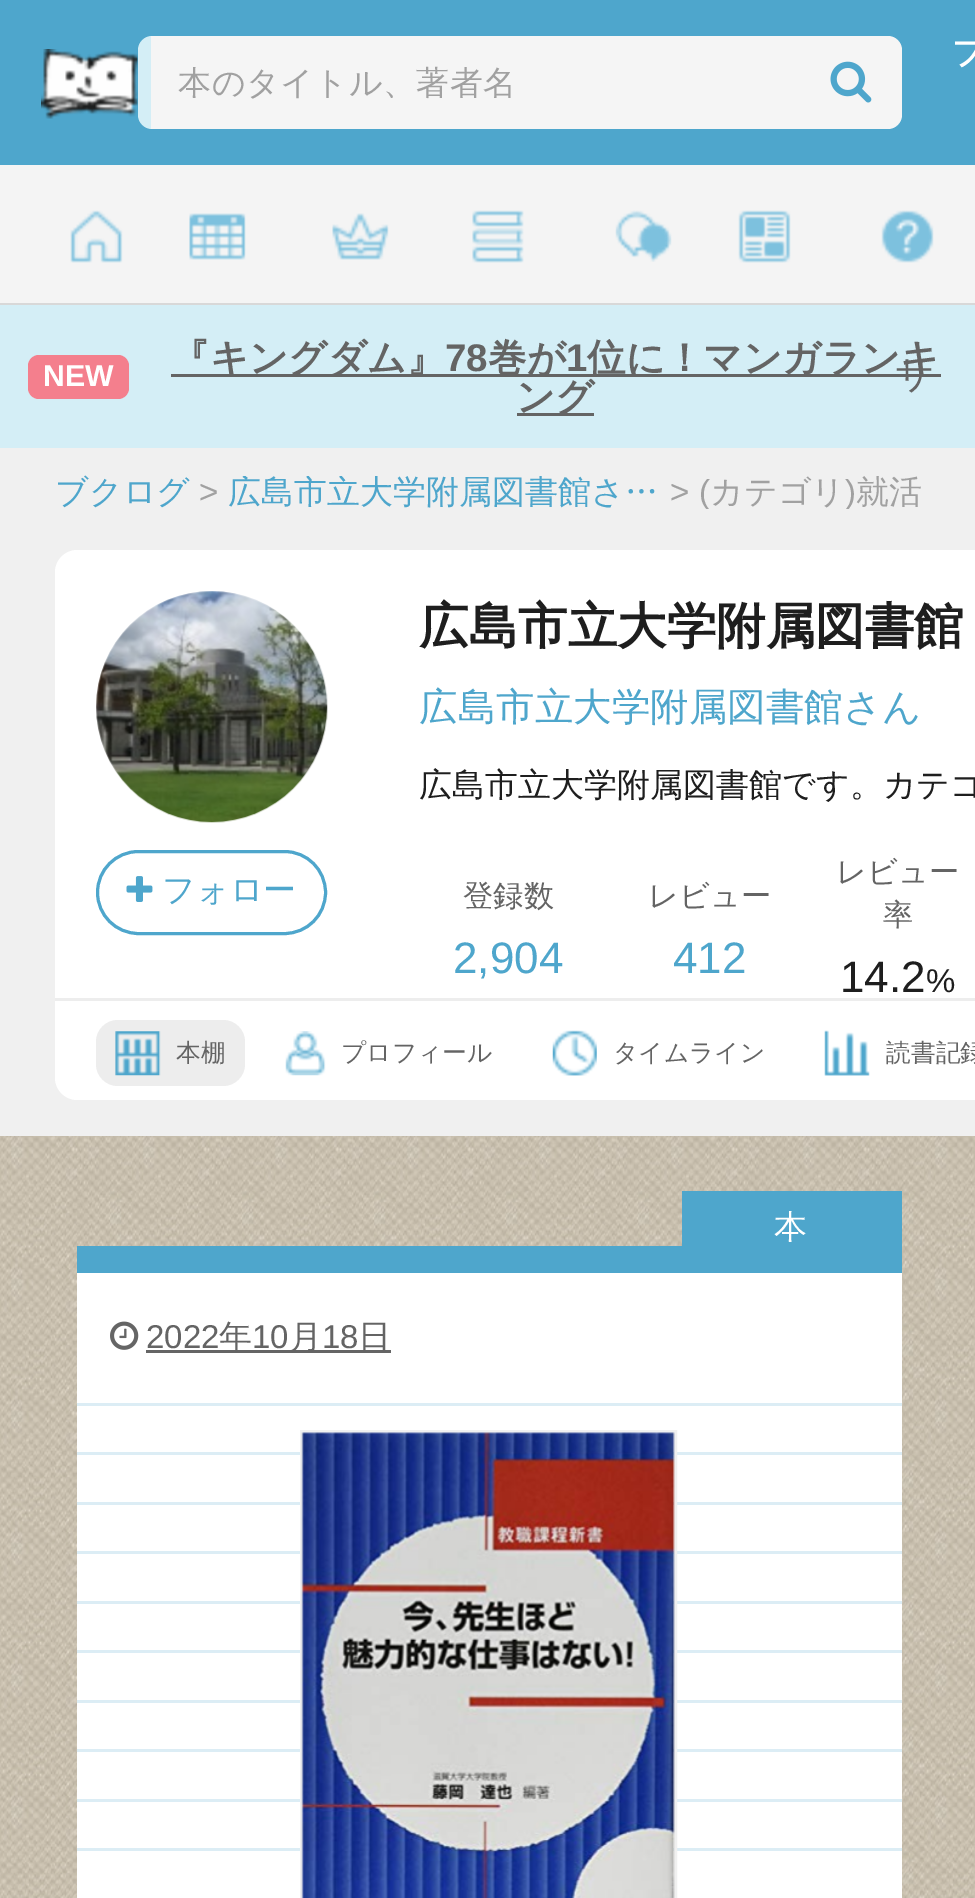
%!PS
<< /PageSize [975 1898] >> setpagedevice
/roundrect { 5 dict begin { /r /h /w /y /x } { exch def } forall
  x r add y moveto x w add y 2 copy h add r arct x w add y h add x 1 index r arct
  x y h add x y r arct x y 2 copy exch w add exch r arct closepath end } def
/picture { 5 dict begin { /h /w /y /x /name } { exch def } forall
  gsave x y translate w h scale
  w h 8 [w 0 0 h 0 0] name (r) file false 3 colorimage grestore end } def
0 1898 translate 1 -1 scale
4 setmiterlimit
0.306 0.651 0.8 setrgbcolor
0 0 975 1898 rectfill
(img1.rgb) 41 49 97 70 picture
/WenQuanYiZenHei-Bold [33 0 0 -33 0 0] selectfont
1 setgray
952 63 moveto (ブ) show
0.831 0.933 0.965 setrgbcolor
newpath 152 36 moveto 402 36 lineto 402 129 lineto 152 129 lineto 144.5 129 138 122.5 138 115 curveto 138 50 lineto 138 42.5 144.5 36 152 36 curveto closepath fill
0.961 setgray
newpath 151 36 moveto 888 36 lineto 895.5 36 902 42.5 902 50 curveto 902 115 lineto 902 122.5 895.5 129 888 129 curveto 151 129 lineto closepath fill
(img2.rgb) 830 61 42 42 picture
/WenQuanYiZenHei-Medium [33 0 0 -33 0 0] selectfont
0.631 setgray
178 94 moveto 0.5 0 (本のタイトル、著者名) ashow
0.831 0.933 0.965 setrgbcolor
0 305 975 143 rectfill
0.957 0.498 0.553 setrgbcolor
28 355 101 44 11 roundrect fill
/LiberationSans-Bold [30.25 0 0 -30.25 0 0] selectfont
1 setgray
43 386 moveto (NEW) show
0.392 setgray
171 374 770 3 rectfill
/WenQuanYiZenHei-Bold [38.5 0 0 -38.5 0 0] selectfont
171 371 moveto (『キングダム』) show
/LiberationSans-Bold [38.5 0 0 -38.5 0 0] selectfont
445 371 moveto (78) show
/WenQuanYiZenHei-Bold [38.5 0 0 -38.5 0 0] selectfont
488 371 moveto (巻が) show
/LiberationSans-Bold [38.5 0 0 -38.5 0 0] selectfont
566 371 moveto (1) show
/WenQuanYiZenHei-Bold [38.5 0 0 -38.5 0 0] selectfont
587 371 moveto (位に！マンガランキ) show
517 413 77 3 rectfill
516 410 moveto (ング) show
0.957 setgray
0 165 975 138 rectfill
0.847 setgray
0 303 975 2 rectfill
(img3.rgb) 70 210 53 53 picture
(img4.rgb) 189 213 57 47 picture
(img5.rgb) 332 213 57 47 picture
(img6.rgb) 472 210 52 53 picture
(img7.rgb) 615 210 57 52 picture
(img8.rgb) 738 210 53 53 picture
(img9.rgb) 881 210 53 53 picture
/WenQuanYiZenHei-Medium [38.5 0 0 -38.5 0 0] selectfont
0.392 setgray
895 387 moveto (サ) show
0.941 setgray
0 448 975 688 rectfill
/WenQuanYiZenHei-Medium [33 0 0 -33 0 0] selectfont
0.306 0.651 0.8 setrgbcolor
55 503 moveto (ブクログ) show
/LiberationSans-Regular [33 0 0 -33 0 0] selectfont
0.631 setgray
199 503 moveto (>) show
gsave
228 476 432 33 rectclip
/WenQuanYiZenHei-Medium [33 0 0 -33 0 0] selectfont
0.306 0.651 0.8 setrgbcolor
228 503 moveto (広島市立大学附属図書館さ…) show
grestore
670 503 moveto (>) show
gsave
699 476 222 33 rectclip
699 503 moveto (\() show
grestore
/WenQuanYiZenHei-Medium [33 0 0 -33 0 0] selectfont
710 503 moveto (カテゴリ) show
gsave
699 476 222 33 rectclip
/LiberationSans-Regular [33 0 0 -33 0 0] selectfont
845 503 moveto (\)) show
/WenQuanYiZenHei-Medium [33 0 0 -33 0 0] selectfont
856 503 moveto (就活) show
grestore
1 setgray
newpath 77 550 moveto 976 550 lineto 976 1100 lineto 77 1100 lineto 65 1100 55 1090 55 1078 curveto 55 572 lineto 55 560 65 550 77 550 curveto closepath fill
(img10.rgb) 96 591 232 232 picture
0.306 0.651 0.8 setrgbcolor
3 setlinewidth
97.5 851.5 228 82 41 roundrect stroke
(img11.rgb) 126 876 27 26 picture
162 901 moveto (フォロー) show
/WenQuanYiZenHei-Bold [49.5 0 0 -49.5 0 0] selectfont
0.118 setgray
419 643 moveto (広島市立大学附属図書館) show
/WenQuanYiZenHei-Medium [38.5 0 0 -38.5 0 0] selectfont
0.306 0.651 0.8 setrgbcolor
419 720 moveto (広島市立大学附属図書館さん) show
/WenQuanYiZenHei-Medium [33 0 0 -33 0 0] selectfont
0.118 setgray
419 796 moveto -1 0 32 (広島市立大学附属図書館です。カテゴ) widthshow
/WenQuanYiZenHei-Medium [30.25 0 0 -30.25 0 0] selectfont
0.392 setgray
463 906 moveto (登録数) show
/LiberationSans-Regular [44 0 0 -44 0 0] selectfont
0.306 0.651 0.8 setrgbcolor
453 973 moveto (2,904) show
/WenQuanYiZenHei-Medium [30.25 0 0 -30.25 0 0] selectfont
0.392 setgray
648 906 moveto (レビュー) show
/LiberationSans-Regular [44 0 0 -44 0 0] selectfont
0.306 0.651 0.8 setrgbcolor
673 973 moveto (412) show
/WenQuanYiZenHei-Medium [30.25 0 0 -30.25 0 0] selectfont
0.392 setgray
836 882 moveto (レビュー) show
883 925 moveto (率) show
/LiberationSans-Regular [44 0 0 -44 0 0] selectfont
0.118 setgray
840 992 moveto (14.2) show
/LiberationSans-Regular [33 0 0 -33 0 0] selectfont
926 992 moveto (%) show
0.929 setgray
55 998 920 3 rectfill
96 1020 149 66 22 roundrect fill
(img12.rgb) 115 1031 46 45 picture
/WenQuanYiZenHei-Medium [24.75 0 0 -24.75 0 0] selectfont
0.392 setgray
176 1061 moveto (本棚) show
(img13.rgb) 285 1031 41 45 picture
341 1061 moveto (プロフィール) show
(img14.rgb) 552 1030 45 46 picture
613 1061 moveto (タイムライン) show
(img15.rgb) 824 1030 46 46 picture
886 1061 moveto (読書記録) show
(img16.rgb) 0 1136 975 762 picture
1 setgray
77 1273 825 625 rectfill
0.306 0.651 0.8 setrgbcolor
682 1191 220 55 rectfill
/WenQuanYiZenHei-Medium [33 0 0 -33 0 0] selectfont
1 setgray
774 1238 moveto (本) show
0.306 0.651 0.8 setrgbcolor
77 1246 825 27 rectfill
(img17.rgb) 110 1321 29 29 picture
/LiberationSans-Regular [33 0 0 -33 0 0] selectfont
0.392 setgray
146 1348 moveto (2022) show
0.396 setgray
146 1350 245 3 rectfill
/WenQuanYiZenHei-Medium [33 0 0 -33 0 0] selectfont
0.392 setgray
219 1348 moveto (年) show
/LiberationSans-Regular [33 0 0 -33 0 0] selectfont
252 1348 moveto (10) show
/WenQuanYiZenHei-Medium [33 0 0 -33 0 0] selectfont
289 1348 moveto (月) show
/LiberationSans-Regular [33 0 0 -33 0 0] selectfont
322 1348 moveto (18) show
/WenQuanYiZenHei-Medium [33 0 0 -33 0 0] selectfont
358 1348 moveto (日) show
0.863 0.929 0.961 setrgbcolor
77 1403 825 3 rectfill
77 1452 825 3 rectfill
77 1502 825 3 rectfill
77 1551 825 3 rectfill
77 1601 825 3 rectfill
77 1650 825 3 rectfill
77 1700 825 3 rectfill
77 1749 825 3 rectfill
77 1799 825 3 rectfill
77 1848 825 3 rectfill
0.941 setgray
301.5 1431.5 374 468 rectstroke
(img18.rgb) 301 1432 374 466 picture
showpage
